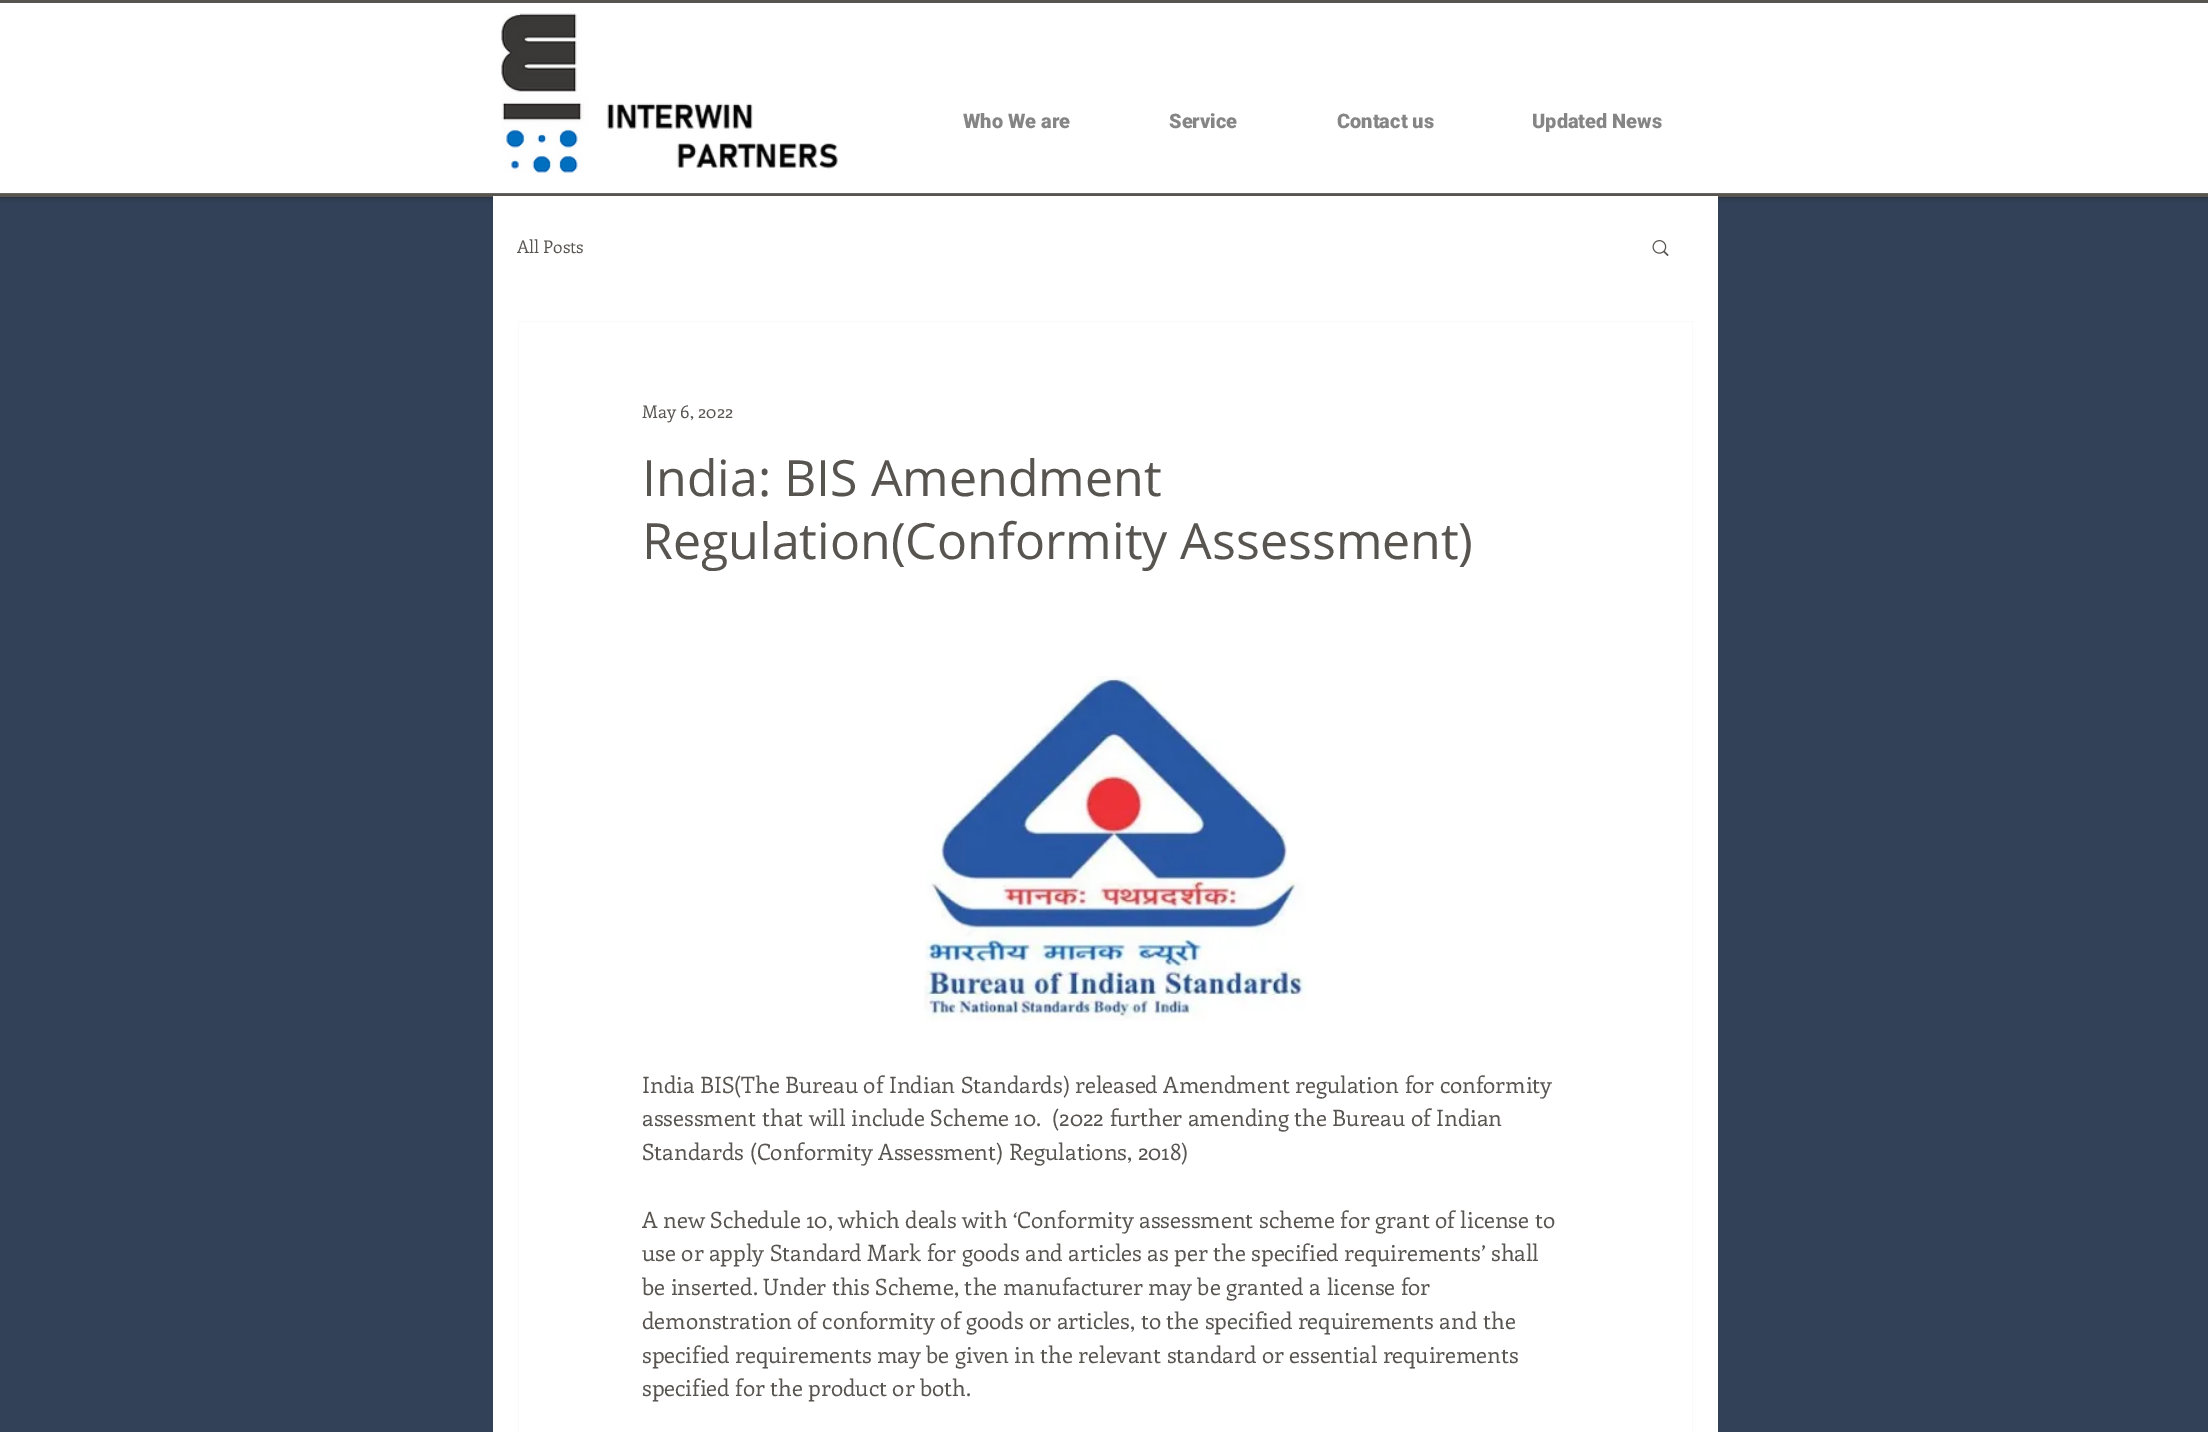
%!PS
<< /PageSize [2208 1432] /PageUsesTransparency true >> setpagedevice
/alpha { dup .setfillconstantalpha .setstrokeconstantalpha } def
/roundrect { 5 dict begin { /r /h /w /y /x } { exch def } forall
  x r add y moveto x w add y 2 copy h add r arct x w add y h add x 1 index r arct
  x y h add x y r arct x y 2 copy exch w add exch r arct closepath end } def
/shadow { 12 dict begin { /a /b /q /h /w /y /x } { exch def } forall gsave /was 0 def
  9 -2 -9 { dup b mul 4 div /e exch def 1 sub .425 mul 2.718 exch exp 1 add a .99 .min exch div /now exch def
    1 1 now sub 1 was sub div sub alpha /was now def
    w h .min e 2 mul add 0 gt { x e sub y e sub w e 2 mul add h e 2 mul add
      q e add b .6 mul add w h .min 2 div e add .min 0 .max roundrect fill } if } for grestore end } def
/picture { 5 dict begin { /h /w /y /x /name } { exch def } forall
  gsave x y translate w h scale
  w h 8 [w 0 0 h 0 0] name (r) file false 3 colorimage grestore end } def
0 .pushpdf14devicefilter
0 1432 translate 1 -1 scale
4 setmiterlimit
0.196 0.255 0.345 setrgbcolor
0 0 2208 1432 rectfill
0 setgray
0 0 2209 196 0 3 0.6 shadow
1 setgray
0 3 2208 190 rectfill
0.4 setgray
0 193 2208 1 rectfill
0.345 0.333 0.318 setrgbcolor
0 0 2208 3 rectfill
0 194 2208 3 rectfill
(img1.rgb) 501 13 337 160 picture
/Roboto-Black [20 0 0 -20 0 0] selectfont
0.522 setgray
963 128 moveto (Who We are) show
1169 128 moveto (Service) show
1337 128 moveto (Contact us) show
1532 128 moveto (Updated News) show
1 setgray
493 196 1225 1236 rectfill
/Enriqueta-Regular [17.5 0 0 -17.5 0 0] selectfont
0.345 0.333 0.318 setrgbcolor
517 253 moveto (All Posts) show
(img2.rgb) 1652 240 17 17 picture
0.98 setgray
518.5 321.5 1174 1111 rectstroke
0.345 0.333 0.318 setrgbcolor
642 418 moveto (May 6, 2022) show
/OpenSans-Regular [50 0 0 -50 0 0] selectfont
642 496 moveto (India: BIS Amendment) show
642 559 moveto (Regulation\(Conformity Assessment\)) show
(img3.rgb) 924 676 383 345 picture
/Enriqueta-Regular [22.5 0 0 -22.5 0 0] selectfont
642 1093 moveto (India BIS\(The Bureau of Indian Standards\) released Amendment regulation for conformity) show
642 1126 moveto (assessment that will include Scheme 10.  \(2022 further amending the Bureau of Indian) show
642 1160 moveto (Standards \(Conformity Assessment\) Regulations, 2018\)) show
642 1228 moveto (A new Schedule 10, which deals with ‘Conformity assessment scheme for grant of license to) show
642 1261 moveto (use or apply Standard Mark for goods and articles as per the specified requirements’ shall) show
642 1295 moveto (be inserted. Under this Scheme, the manufacturer may be granted a license for) show
642 1329 moveto (demonstration of conformity of goods or articles, to the specified requirements and the) show
642 1363 moveto (specified requirements may be given in the relevant standard or essential requirements) show
642 1396 moveto (specified for the product or both.) show
.poppdf14devicefilter showpage
